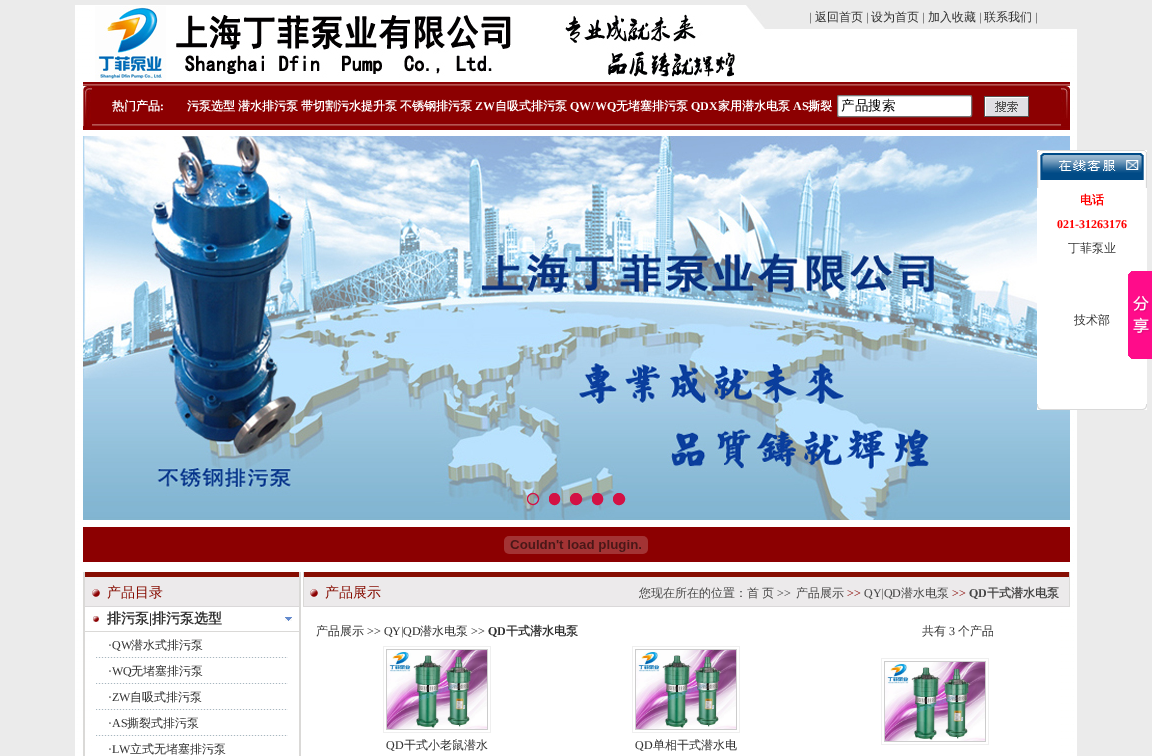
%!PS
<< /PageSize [1152 756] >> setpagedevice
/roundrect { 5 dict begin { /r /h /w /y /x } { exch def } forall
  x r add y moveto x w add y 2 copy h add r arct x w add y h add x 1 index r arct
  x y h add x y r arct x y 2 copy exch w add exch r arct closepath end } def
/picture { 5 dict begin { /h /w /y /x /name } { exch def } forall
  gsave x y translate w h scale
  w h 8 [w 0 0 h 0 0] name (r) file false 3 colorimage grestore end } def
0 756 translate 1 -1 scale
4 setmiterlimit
0.922 setgray
0 0 1152 756 rectfill
(img1.rgb) 75 5 1002 751 picture
(img2.rgb) 95 6 640 75 picture
765 5 312 24 rectfill
(img3.rgb) 745 5 20 24 picture
/LiberationSerif-Regular [12 0 0 -12 0 0] selectfont
0.192 setgray
809 21 moveto (|) show
/WenQuanYiZenHei-Medium [12 0 0 -12 0 0] selectfont
815 21 moveto (返回首页) show
/LiberationSerif-Regular [12 0 0 -12 0 0] selectfont
866 21 moveto (|) show
/WenQuanYiZenHei-Medium [12 0 0 -12 0 0] selectfont
871 21 moveto (设为首页) show
/LiberationSerif-Regular [12 0 0 -12 0 0] selectfont
922 21 moveto (|) show
/WenQuanYiZenHei-Medium [12 0 0 -12 0 0] selectfont
928 21 moveto (加入收藏) show
/LiberationSerif-Regular [12 0 0 -12 0 0] selectfont
979 21 moveto (|) show
/WenQuanYiZenHei-Medium [12 0 0 -12 0 0] selectfont
984 21 moveto (联系我们) show
/LiberationSerif-Regular [12 0 0 -12 0 0] selectfont
1035 21 moveto (|) show
(img4.rgb) 83 82 987 48 picture
(img5.rgb) 83 86 9 40 picture
/WenQuanYiZenHei-Bold [12 0 0 -12 0 0] selectfont
1 setgray
112 110 moveto (热门产品) show
/LiberationSerif-Bold [12 0 0 -12 0 0] selectfont
160 110 moveto (:) show
/WenQuanYiZenHei-Bold [12 0 0 -12 0 0] selectfont
187 110 moveto (污泵选型) show
238 110 moveto (潜水排污泵) show
301 110 moveto (带切割污水提升泵) show
400 110 moveto (不锈钢排污泵) show
/LiberationSerif-Bold [12 0 0 -12 0 0] selectfont
475 110 moveto (ZW) show
/WenQuanYiZenHei-Bold [12 0 0 -12 0 0] selectfont
495 110 moveto (自吸式排污泵) show
/LiberationSerif-Bold [12 0 0 -12 0 0] selectfont
570 110 moveto (QW/WQ) show
/WenQuanYiZenHei-Bold [12 0 0 -12 0 0] selectfont
616 110 moveto (无堵塞排污泵) show
/LiberationSerif-Bold [12 0 0 -12 0 0] selectfont
691 110 moveto (QDX) show
/WenQuanYiZenHei-Bold [12 0 0 -12 0 0] selectfont
718 110 moveto (家用潜水电泵) show
/LiberationSerif-Bold [12 0 0 -12 0 0] selectfont
793 110 moveto (AS) show
/WenQuanYiZenHei-Bold [12 0 0 -12 0 0] selectfont
808 110 moveto (撕裂) show
837.5 95.5 134 21 1.5 roundrect gsave fill grestore
0.463 setgray
stroke
/WenQuanYiZenHei-Medium [13.5 0 0 -13.5 0 0] selectfont
0 setgray
841 110 moveto (产品搜索) show
(img6.rgb) 984 96 45 21 picture
(img7.rgb) 1061 86 9 40 picture
(img8.rgb) 83 136 987 384 picture
0.827 0.067 0.271 setrgbcolor
newpath 533 499 5.5 0 360 arc closepath stroke
549.5 493.5 10 11 5 roundrect gsave fill grestore
stroke
newpath 576 499 5.5 0 360 arc closepath gsave fill grestore
stroke
592.5 493.5 10 11 5 roundrect gsave fill grestore
stroke
newpath 619 499 5.5 0 360 arc closepath gsave fill grestore
stroke
1 setgray
1037 188 110 216 rectfill
(img9.rgb) 1037 150 110 38 picture
/WenQuanYiZenHei-Bold [12 0 0 -12 0 0] selectfont
1 0 0 setrgbcolor
1080 204 moveto (电话) show
/LiberationSerif-Bold [12 0 0 -12 0 0] selectfont
1057 228 moveto (021-31263176) show
/WenQuanYiZenHei-Medium [12 0 0 -12 0 0] selectfont
0.192 setgray
1068 252 moveto (丁菲泵业) show
1074 324 moveto (技术部) show
(img10.rgb) 1037 404 110 6 picture
(img11.rgb) 1128 271 24 88 picture
0.549 0 0.004 setrgbcolor
83 527 987 35 rectfill
(img12.rgb) 504 536 144 18 picture
0.855 0.851 0.843 setrgbcolor
299 572 2 184 rectfill
83 572 2 184 rectfill
(img13.rgb) 85 572 214 35 picture
(img14.rgb) 92 589 8 8 picture
/WenQuanYiZenHei-Medium [14 0 0 -14 0 0] selectfont
0.525 0.047 0.004 setrgbcolor
107 597 moveto (产品目录) show
/WenQuanYiZenHei-Bold [14 0 0 -14 0 0] selectfont
0.192 setgray
107 623 moveto (排污泵) show
/LiberationSerif-Bold [14 0 0 -14 0 0] selectfont
149 623 moveto (|) show
/WenQuanYiZenHei-Bold [14 0 0 -14 0 0] selectfont
152 623 moveto (排污泵选型) show
0.855 0.851 0.843 setrgbcolor
85 631 214 1 rectfill
(img15.rgb) 93 616 6 6 picture
(img16.rgb) 285 617 7 4 picture
(img17.rgb) 96 657 192 1 picture
/LiberationSerif-Regular [12 0 0 -12 0 0] selectfont
0.192 setgray
108 649 moveto (·QW) show
/WenQuanYiZenHei-Medium [12 0 0 -12 0 0] selectfont
131 649 moveto (潜水式排污泵) show
(img17.rgb) 96 683 192 1 picture
/LiberationSerif-Regular [12 0 0 -12 0 0] selectfont
108 675 moveto (·WQ) show
/WenQuanYiZenHei-Medium [12 0 0 -12 0 0] selectfont
131 675 moveto (无堵塞排污泵) show
(img17.rgb) 96 709 192 1 picture
/LiberationSerif-Regular [12 0 0 -12 0 0] selectfont
108 701 moveto (·ZW) show
/WenQuanYiZenHei-Medium [12 0 0 -12 0 0] selectfont
130 701 moveto (自吸式排污泵) show
(img17.rgb) 96 735 192 1 picture
/LiberationSerif-Regular [12 0 0 -12 0 0] selectfont
108 727 moveto (·AS) show
/WenQuanYiZenHei-Medium [12 0 0 -12 0 0] selectfont
127 727 moveto (撕裂式排污泵) show
/LiberationSerif-Regular [12 0 0 -12 0 0] selectfont
108 753 moveto (·LW) show
/WenQuanYiZenHei-Medium [12 0 0 -12 0 0] selectfont
130 753 moveto (立式无堵塞排污泵) show
0.855 0.851 0.843 setrgbcolor
1069 572 1 35 rectfill
303 572 1 35 rectfill
(img18.rgb) 304 572 765 35 picture
(img14.rgb) 310 589 8 8 picture
/WenQuanYiZenHei-Medium [14 0 0 -14 0 0] selectfont
0.525 0.047 0.004 setrgbcolor
325 597 moveto (产品展示) show
/WenQuanYiZenHei-Medium [12 0 0 -12 0 0] selectfont
0.275 setgray
639 597 moveto (您现在所在的位置：) show
747 597 moveto -1 0 32 (首 页) widthshow
/LiberationSerif-Regular [12 0 0 -12 0 0] selectfont
777 597 moveto (>>) show
/WenQuanYiZenHei-Medium [12 0 0 -12 0 0] selectfont
796 597 moveto (产品展示) show
/LiberationSerif-Regular [12 0 0 -12 0 0] selectfont
0.549 0.043 0.031 setrgbcolor
847 597 moveto (>>) show
0.275 setgray
864 597 moveto (QY|QD) show
/WenQuanYiZenHei-Medium [12 0 0 -12 0 0] selectfont
901 597 moveto (潜水电泵) show
/LiberationSerif-Regular [12 0 0 -12 0 0] selectfont
0.549 0.043 0.031 setrgbcolor
952 597 moveto (>>) show
/LiberationSerif-Bold [12 0 0 -12 0 0] selectfont
0.275 setgray
969 597 moveto (QD) show
/WenQuanYiZenHei-Bold [12 0 0 -12 0 0] selectfont
987 597 moveto (干式潜水电泵) show
/WenQuanYiZenHei-Medium [12 0 0 -12 0 0] selectfont
0.192 setgray
316 635 moveto (产品展示) show
/LiberationSerif-Regular [12 0 0 -12 0 0] selectfont
367 635 moveto (>> QY|QD) show
/WenQuanYiZenHei-Medium [12 0 0 -12 0 0] selectfont
420 635 moveto (潜水电泵) show
/LiberationSerif-Regular [12 0 0 -12 0 0] selectfont
471 635 moveto (>>) show
/LiberationSerif-Bold [12 0 0 -12 0 0] selectfont
488 635 moveto (QD) show
/WenQuanYiZenHei-Bold [12 0 0 -12 0 0] selectfont
506 635 moveto (干式潜水电泵) show
/WenQuanYiZenHei-Medium [12 0 0 -12 0 0] selectfont
922 635 moveto (共有) show
/LiberationSerif-Regular [12 0 0 -12 0 0] selectfont
949 635 moveto (3) show
/WenQuanYiZenHei-Medium [12 0 0 -12 0 0] selectfont
958 635 moveto (个产品) show
0.937 setgray
383 646 108 87 rectfill
1 setgray
384 647 106 85 rectfill
0.8 setgray
386 649 102 81 rectfill
(img19.rgb) 387 650 100 79 picture
/LiberationSerif-Regular [12 0 0 -12 0 0] selectfont
0.192 setgray
386 749 moveto (QD) show
/WenQuanYiZenHei-Medium [12 0 0 -12 0 0] selectfont
404 749 moveto (干式小老鼠潜水) show
0.937 setgray
632 646 108 87 rectfill
1 setgray
633 647 106 85 rectfill
0.8 setgray
635 649 102 81 rectfill
(img19.rgb) 636 650 100 79 picture
/LiberationSerif-Regular [12 0 0 -12 0 0] selectfont
0.192 setgray
635 749 moveto (QD) show
/WenQuanYiZenHei-Medium [12 0 0 -12 0 0] selectfont
653 749 moveto (单相干式潜水电) show
0.937 setgray
881 658 108 87 rectfill
1 setgray
882 659 106 85 rectfill
0.8 setgray
884 661 102 81 rectfill
(img20.rgb) 885 662 100 79 picture
showpage
